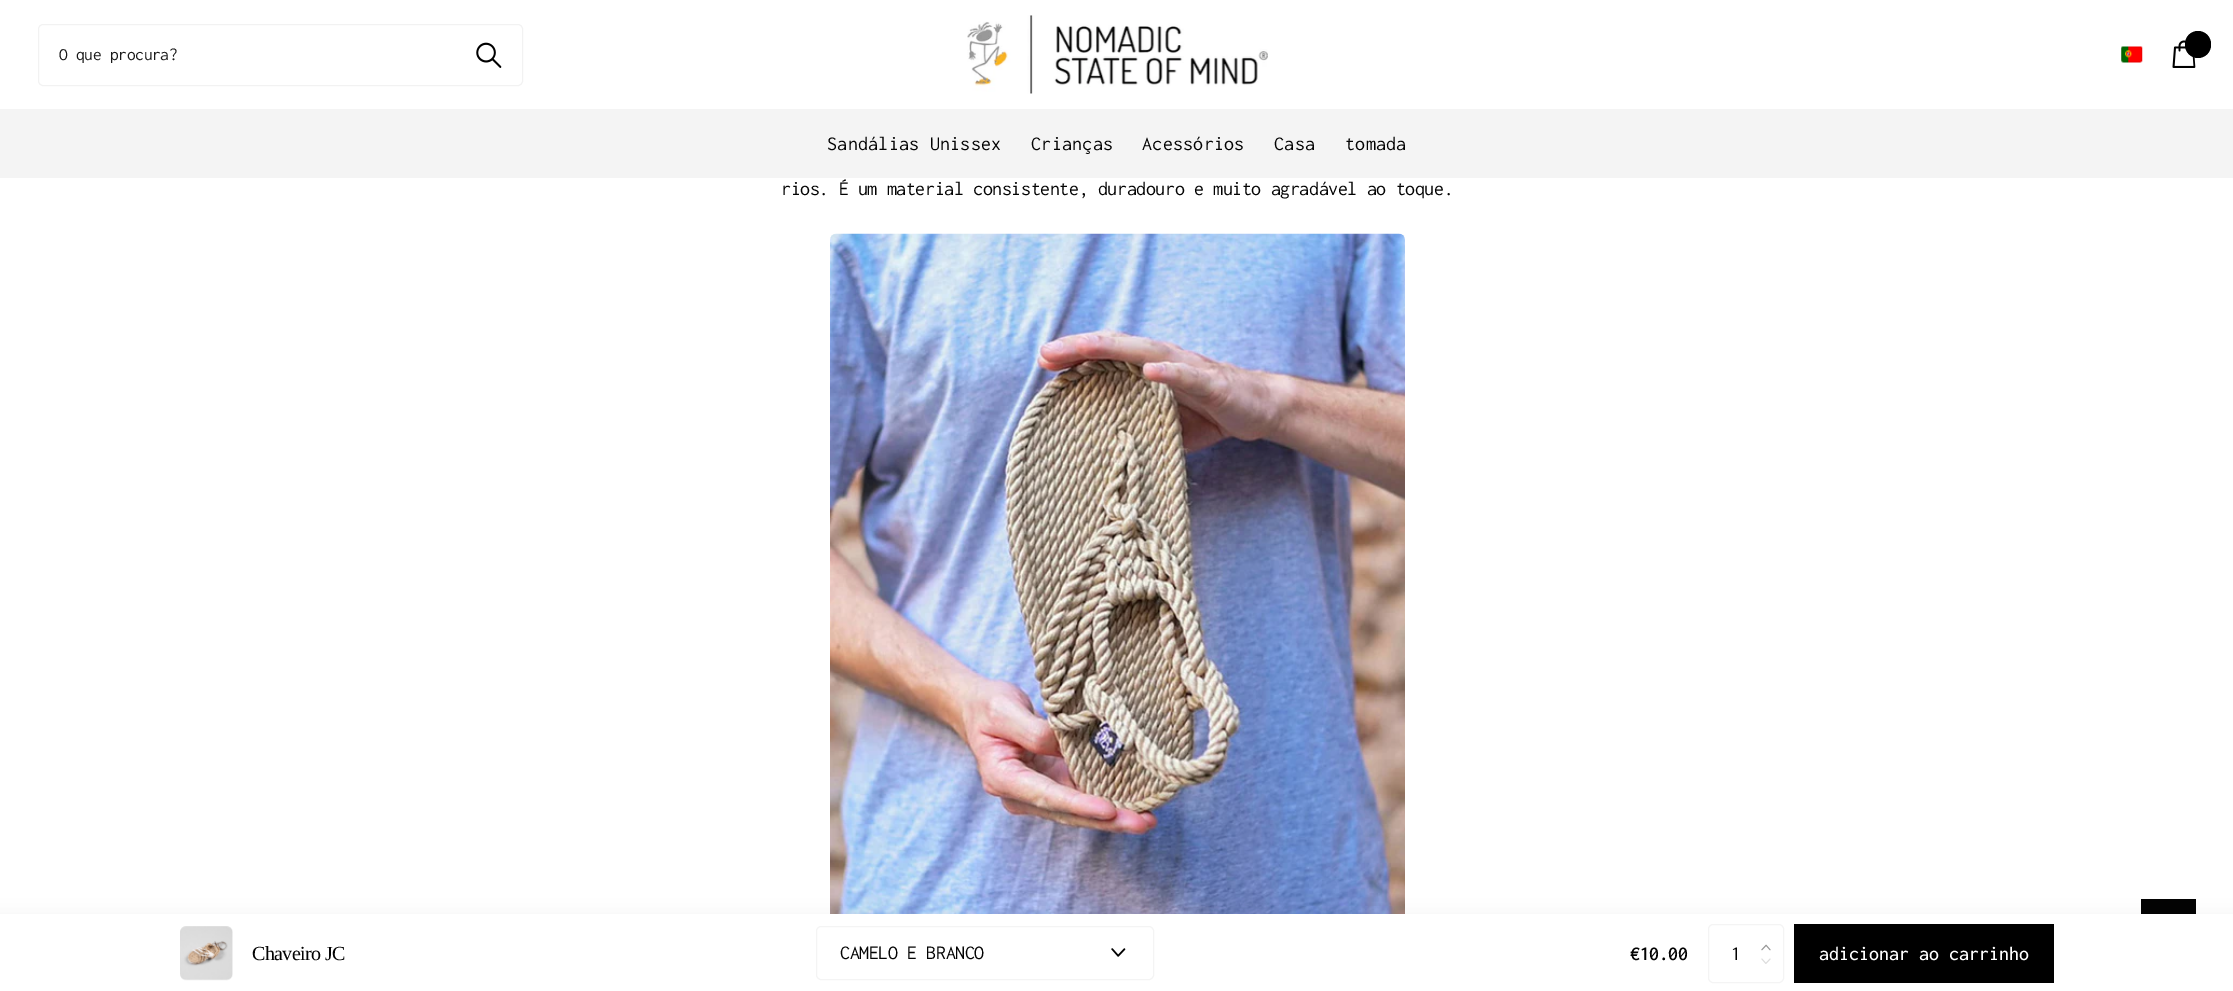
%!PS
<< /PageSize [2233 991] /PageUsesTransparency true >> setpagedevice
/alpha { dup .setfillconstantalpha .setstrokeconstantalpha } def
/roundrect { 5 dict begin { /r /h /w /y /x } { exch def } forall
  x r add y moveto x w add y 2 copy h add r arct x w add y h add x 1 index r arct
  x y h add x y r arct x y 2 copy exch w add exch r arct closepath end } def
/shadow { 12 dict begin { /a /b /q /h /w /y /x } { exch def } forall gsave /was 0 def
  9 -2 -9 { dup b mul 4 div /e exch def 1 sub .425 mul 2.718 exch exp 1 add a .99 .min exch div /now exch def
    1 1 now sub 1 was sub div sub alpha /was now def
    w h .min e 2 mul add 0 gt { x e sub y e sub w e 2 mul add h e 2 mul add
      q e add b .6 mul add w h .min 2 div e add .min 0 .max roundrect fill } if } for grestore end } def
/picture { 5 dict begin { /h /w /y /x /name } { exch def } forall
  gsave x y translate w h scale
  w h 8 [w 0 0 h 0 0] name (r) file false 3 colorimage grestore end } def
0 .pushpdf14devicefilter
0 991 translate 1 -1 scale
4 setmiterlimit
1 setgray
0 0 2233 991 rectfill
0.949 setgray
38.5 24.5 484 61 4.5 roundrect stroke
/Inconsolata-Regular [17.5 0 0 -17.5 0 0] selectfont
0.102 setgray
59 60 moveto -0.3 0 (O que procura?) ashow
(img1.rgb) 476 42 26 26 picture
(img2.rgb) 967 15 301 79 picture
(img3.rgb) 2121 46 22 17 picture
(img4.rgb) 2172 40 24 28 picture
0 setgray
2185 31 26 27 13 roundrect fill
0.957 setgray
0 109 2233 69 rectfill
/Inconsolata-Regular [20 0 0 -20 0 0] selectfont
0.012 setgray
827 150 moveto 0.25 0 (Sandálias Unissex) ashow
1031 150 moveto 0.25 0 (Crianças) ashow
1142 150 moveto 0.25 0 (Acessórios) ashow
1274 150 moveto 0.25 0 (Casa) ashow
1345 150 moveto 0.25 0 (tomada) ashow
781 195 moveto -0.4 0 (rios. É um material consistente, duradouro e muito agradável ao toque.) ashow
(img5.rgb) 830 233 575 681 picture
2141 899 55 15 rectfill
0 setgray
-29 910 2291 78 0 9.5 0.04 shadow
1 setgray
0 914 2233 77 rectfill
0.957 setgray
180 926 53 54 6 roundrect fill
(img6.rgb) 180 926 53 55 picture
/LiberationSerif-Regular [20 0 0 -20 0 0] selectfont
0.012 setgray
252 960 moveto -0.6 0 (Chaveiro JC) ashow
0.957 setgray
816.5 926.5 337 53 4.5 roundrect stroke
/Inconsolata-Regular [20 0 0 -20 0 0] selectfont
0.012 setgray
840 959 moveto -0.4 0 (CAMELO E BRANCO) ashow
(img7.rgb) 1111 948 15 9 picture
/Inconsolata-SemiBold [20 0 0 -20 0 0] selectfont
1630 960 moveto -0.4 0 (€10.00) ashow
0.957 setgray
1708.5 924.5 75 58 4.5 roundrect stroke
/Inconsolata-Regular [20 0 0 -20 0 0] selectfont
0.012 setgray
1731 960 moveto -0.4 0 (1) ashow
(img8.rgb) 1761 944 10 7 picture
(img9.rgb) 1761 958 10 6 picture
0 setgray
1794 924 260 59 rectfill
/Inconsolata-Medium [20 0 0 -20 0 0] selectfont
1 setgray
1819 960 moveto (adicionar ao carrinho) show
.poppdf14devicefilter showpage
